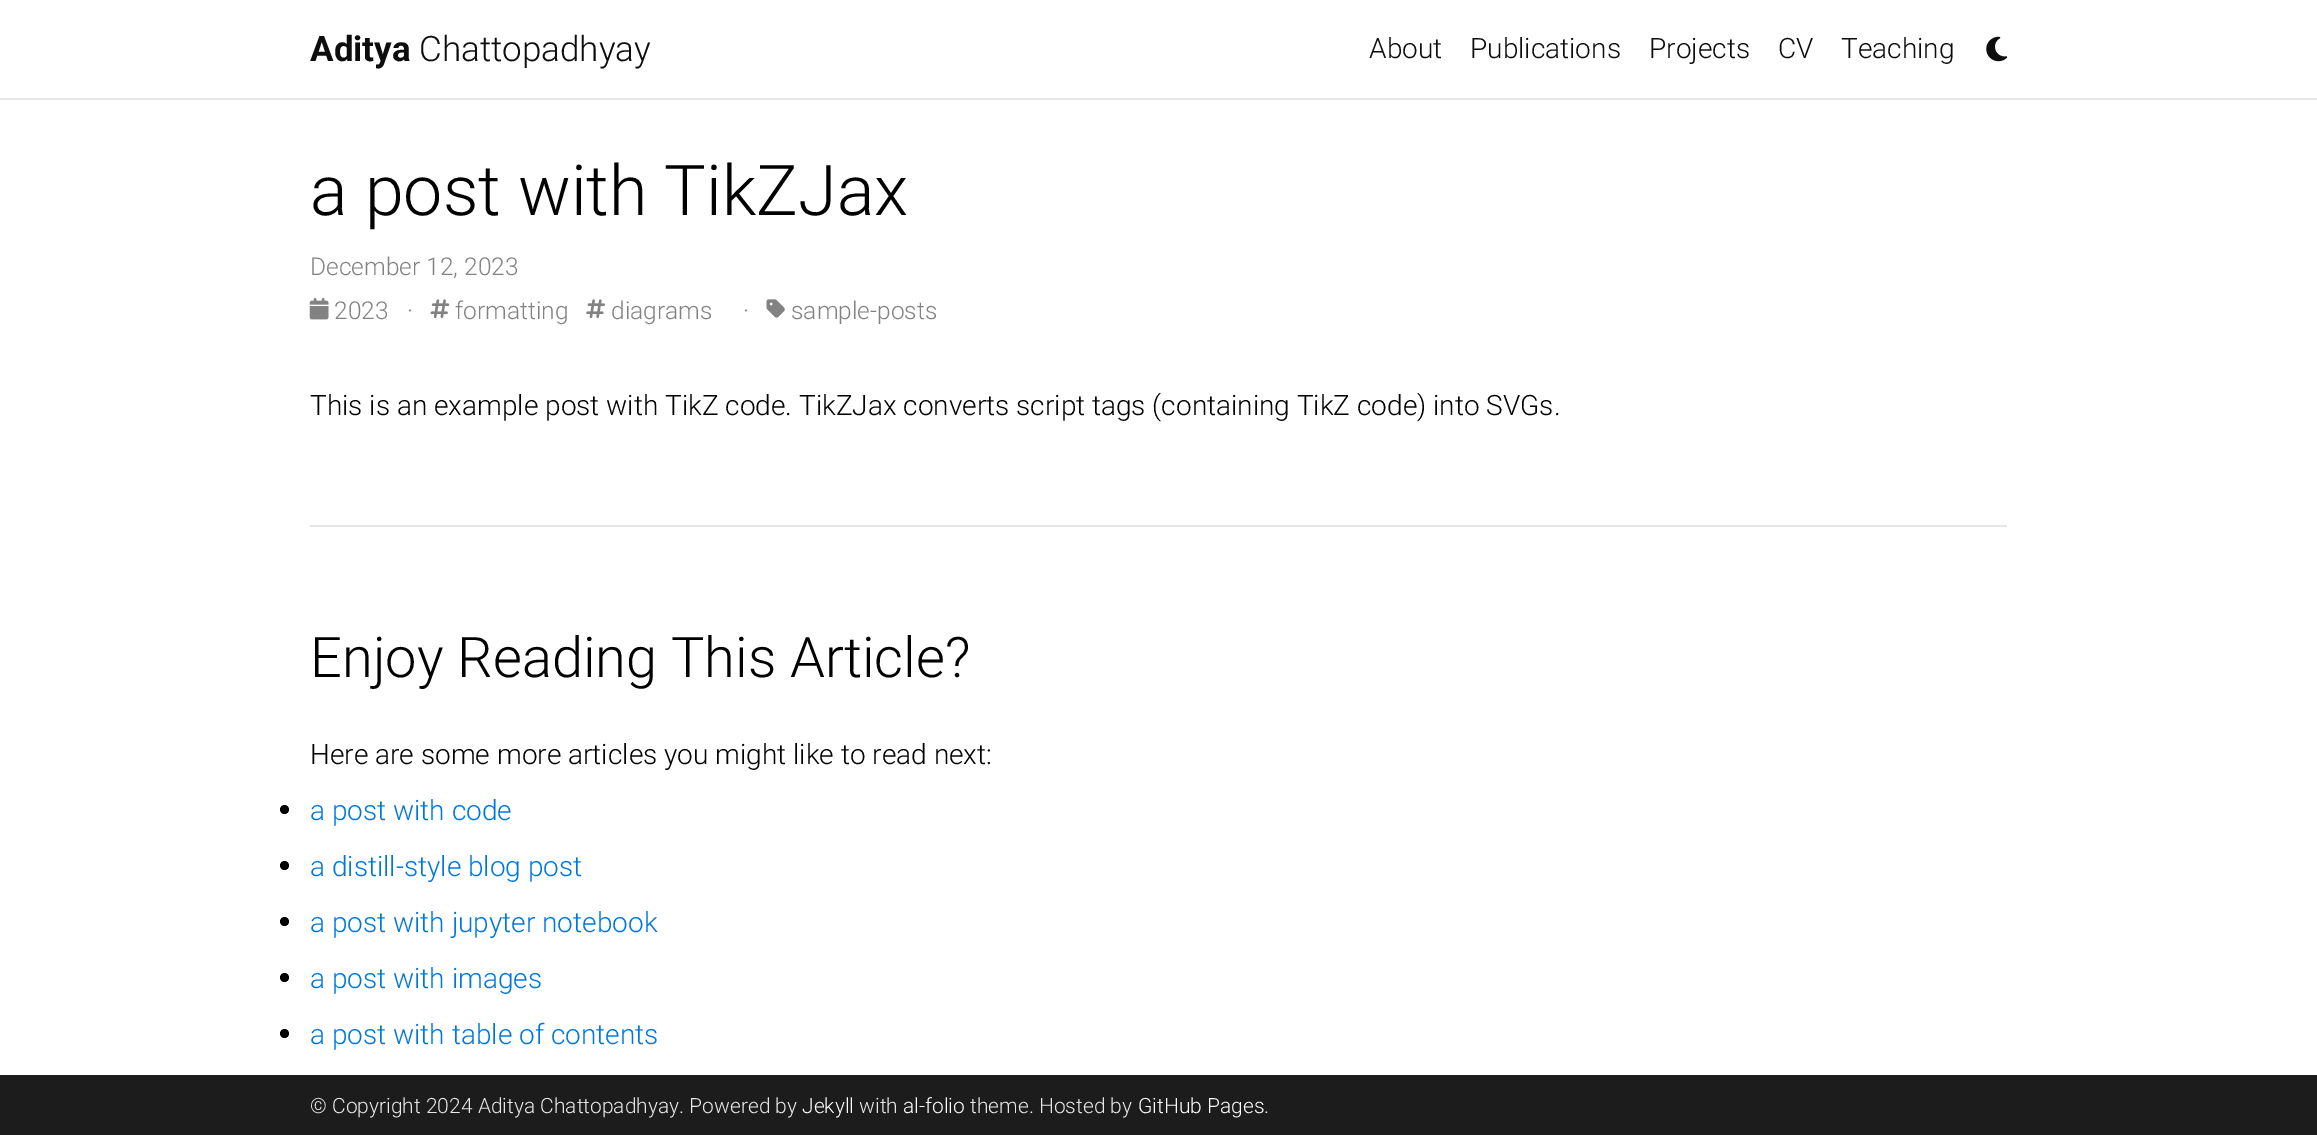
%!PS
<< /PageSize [2317 1135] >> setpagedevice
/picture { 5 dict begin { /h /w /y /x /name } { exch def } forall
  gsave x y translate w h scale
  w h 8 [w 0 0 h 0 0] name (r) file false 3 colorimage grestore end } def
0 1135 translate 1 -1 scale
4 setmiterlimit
1 setgray
0 0 2317 1135 rectfill
0.906 setgray
0 98 2317 2 rectfill
/Roboto-Bold [35 0 0 -35 0 0] selectfont
0.051 setgray
310 61 moveto (Aditya) show
/Roboto-Light [35 0 0 -35 0 0] selectfont
419 61 moveto (Chattopadhyay) show
/Roboto-Light [28 0 0 -28 0 0] selectfont
1369 58 moveto (About) show
1470 58 moveto (Publications) show
1649 58 moveto (Projects) show
1778 58 moveto (CV) show
1841 58 moveto (Teaching) show
(img1.rgb) 1986 36 22 26 picture
/Roboto-Light [70 0 0 -70 0 0] selectfont
0 setgray
310 215 moveto (a post with TikZJax) show
/Roboto-Light [24.5 0 0 -24.5 0 0] selectfont
0.51 setgray
310 275 moveto (December 12, 2023) show
(img2.rgb) 309 298 20 22 picture
334 319 moveto (2023) show
407 319 moveto (·) show
(img3.rgb) 430 299 20 20 picture
455 319 moveto (formatting) show
(img4.rgb) 586 299 19 20 picture
611 319 moveto (diagrams) show
743 319 moveto (·) show
(img5.rgb) 766 299 19 19 picture
791 319 moveto (sample-posts) show
/Roboto-Light [28 0 0 -28 0 0] selectfont
0 setgray
310 415 moveto (This is an example post with TikZ code. TikZJax converts script tags \(containing TikZ code\) into SVGs.) show
0.902 setgray
310 525 1697 2 rectfill
/Roboto-Light [56 0 0 -56 0 0] selectfont
0 setgray
310 677 moveto (Enjoy Reading This Article?) show
/Roboto-Light [28 0 0 -28 0 0] selectfont
310 764 moveto (Here are some more articles you might like to read next:) show
newpath 284.5 809.5 4.5 0 360 arc closepath fill
0 0.463 0.875 setrgbcolor
310 820 moveto (a post with code) show
0 setgray
newpath 284.5 865.5 4.5 0 360 arc closepath fill
0 0.463 0.875 setrgbcolor
310 876 moveto (a distill-style blog post) show
0 setgray
newpath 284.5 921.5 4.5 0 360 arc closepath fill
0 0.463 0.875 setrgbcolor
310 932 moveto (a post with jupyter notebook) show
0 setgray
newpath 284.5 977.5 4.5 0 360 arc closepath fill
0 0.463 0.875 setrgbcolor
310 988 moveto (a post with images) show
0 setgray
newpath 284.5 1033.5 4.5 0 360 arc closepath fill
0 0.463 0.875 setrgbcolor
310 1044 moveto (a post with table of contents) show
0.11 0.11 0.114 setrgbcolor
0 1075 2317 60 rectfill
/Roboto-Light [21 0 0 -21 0 0] selectfont
0.91 setgray
310 1113 moveto (© Copyright 2024 Aditya Chattopadhyay. Powered by) show
1 setgray
802 1113 moveto (Jekyll) show
0.91 setgray
859 1113 moveto (with) show
1 setgray
903 1113 moveto (al-folio) show
0.91 setgray
970 1113 moveto (theme. Hosted by) show
1 setgray
1138 1113 moveto (GitHub Pages) show
0.91 setgray
1264 1113 moveto (.) show
showpage
